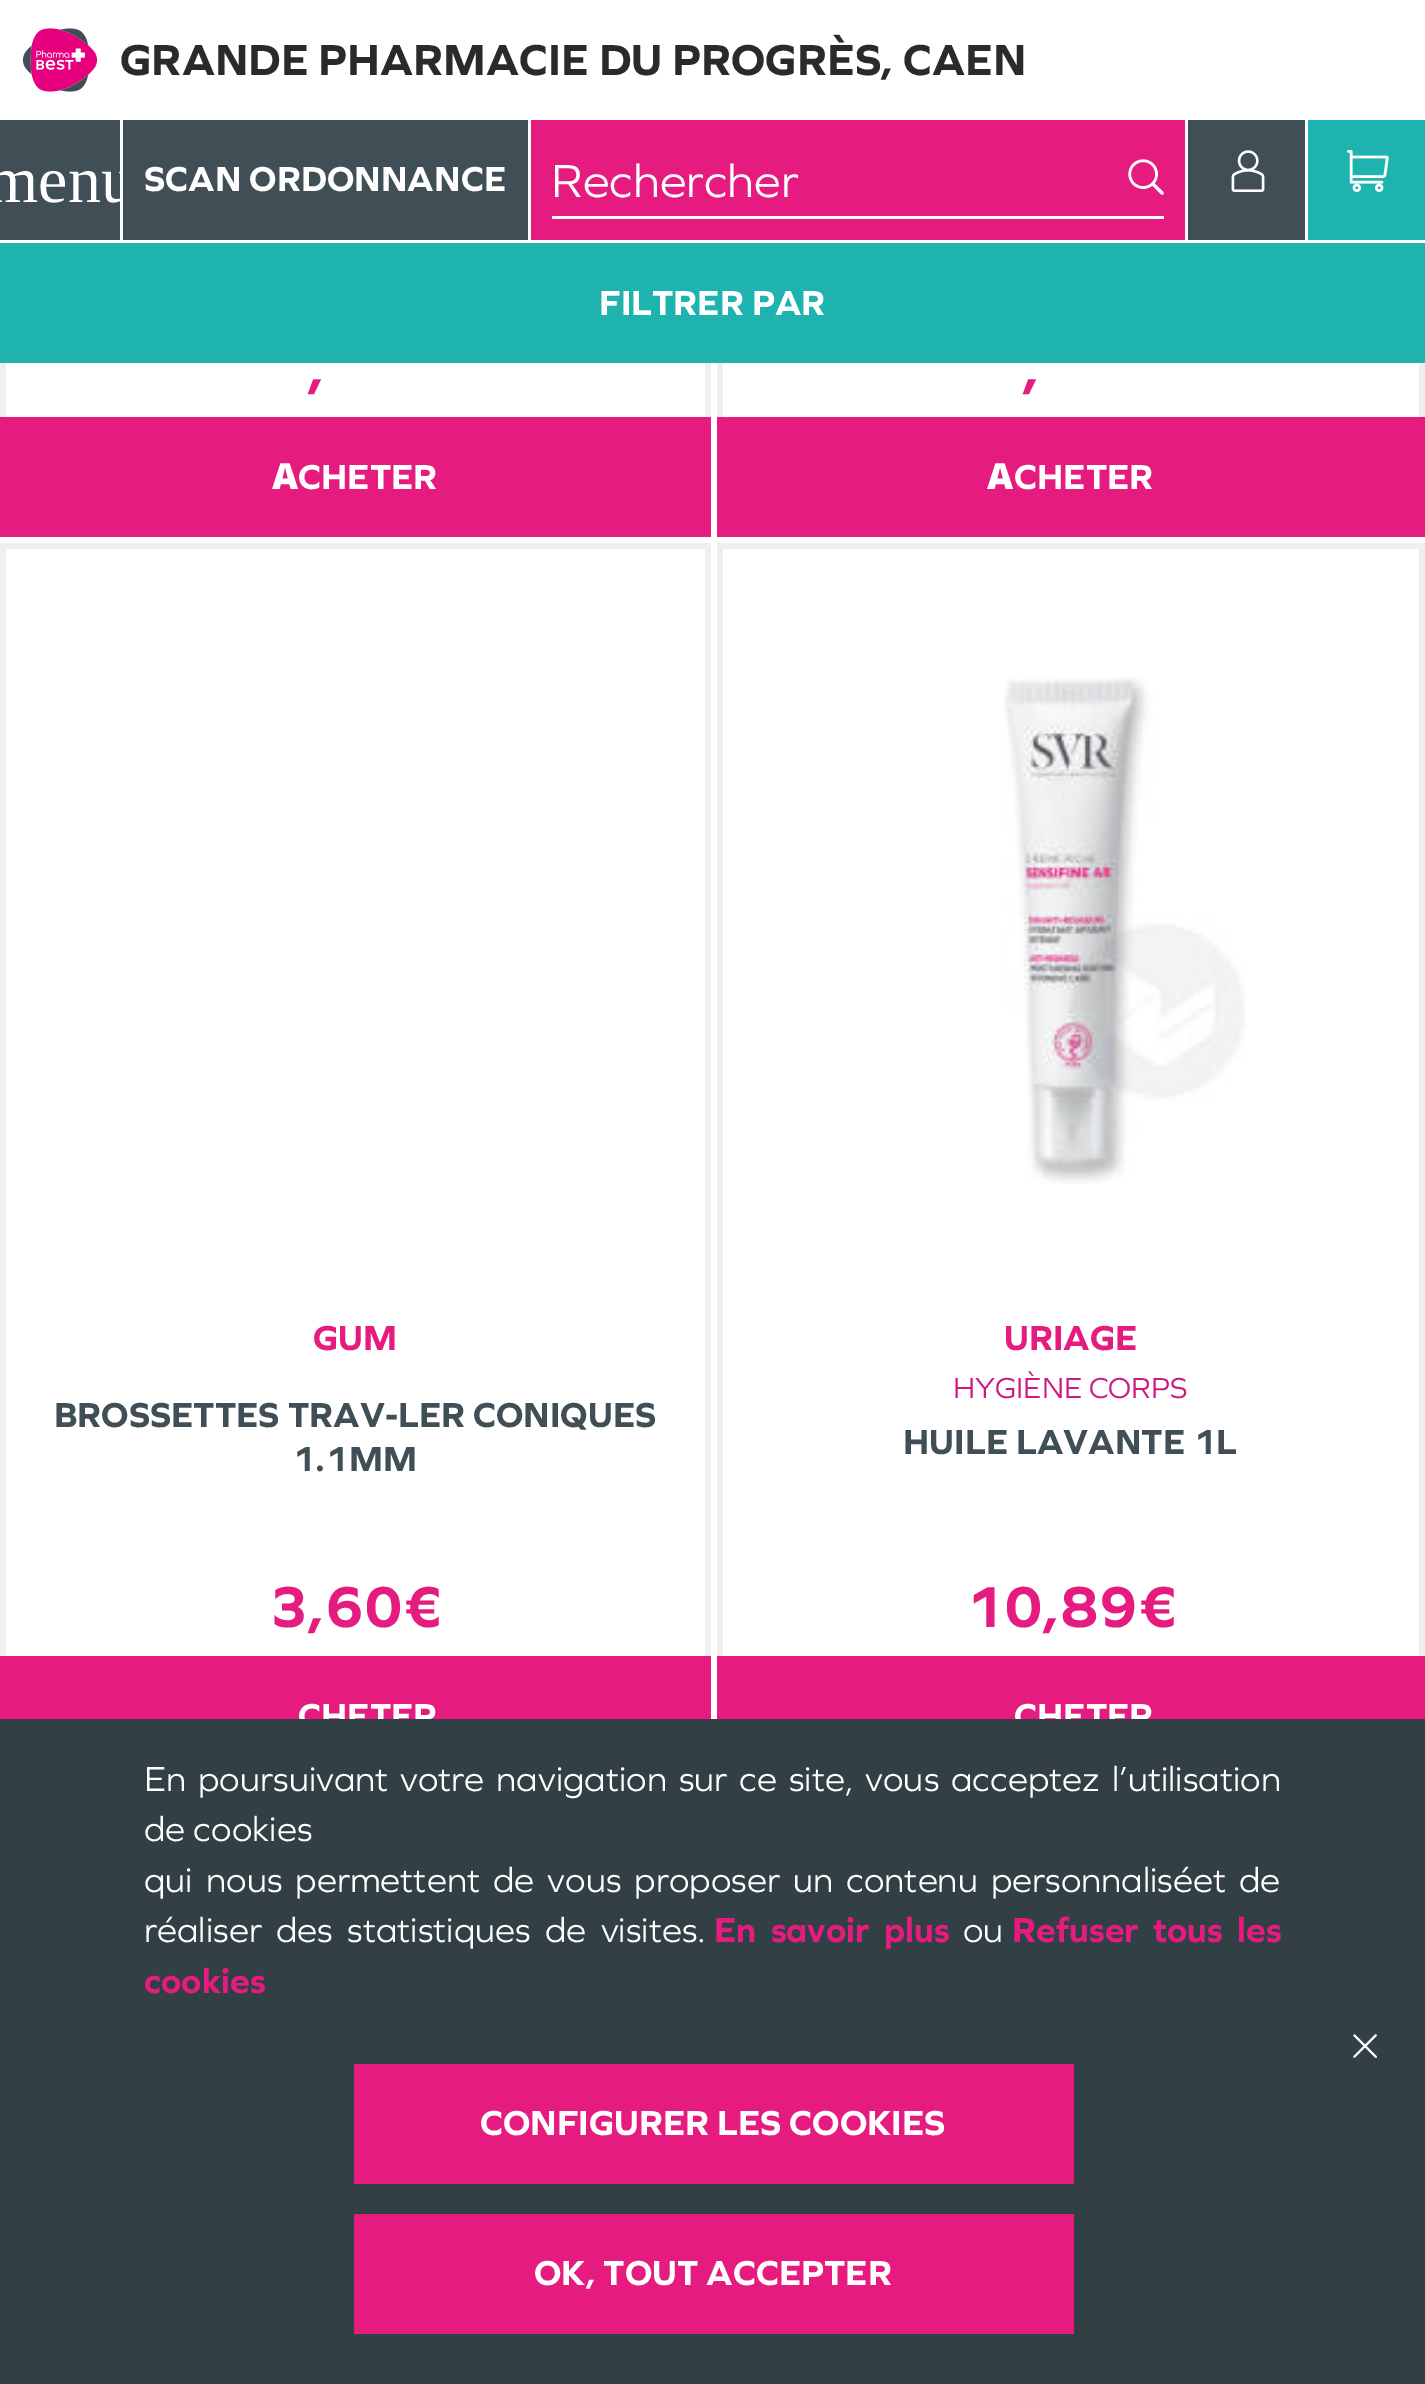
%!PS
<< /PageSize [1425 2384] >> setpagedevice
/picture { 5 dict begin { /h /w /y /x /name } { exch def } forall
  gsave x y translate w h scale
  w h 8 [w 0 0 h 0 0] name (r) file false 3 colorimage grestore end } def
0 2384 translate 1 -1 scale
4 setmiterlimit
1 setgray
0 0 1425 2384 rectfill
(img1.rgb) 22 28 76 64 picture
/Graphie-Bold [45 0 0 -45 0 0] selectfont
0.165 0.169 0.161 setrgbcolor
120 75 moveto (GRANDE PHARMACIE DU PROGRÈS, CAEN) show
0.251 0.306 0.333 setrgbcolor
0 120 120 120 rectfill
/LiberationSerif-Regular [66 0 0 -66 0 0] selectfont
1 setgray
-13 202 moveto (menu) show
0.251 0.306 0.333 setrgbcolor
123 120 405 120 rectfill
/Graphie-Bold [36 0 0 -36 0 0] selectfont
1 setgray
144 191 moveto (SCAN ORDONNANCE) show
0.902 0.106 0.502 setrgbcolor
531 120 654 120 rectfill
1 setgray
552 216 612 3 rectfill
(img2.rgb) 1128 159 36 36 picture
/Graphie-Regular [48 0 0 -48 0 0] selectfont
551 197 moveto (Rechercher) show
0.251 0.306 0.333 setrgbcolor
1188 120 117 120 rectfill
(img3.rgb) 1231 150 34 42 picture
0.122 0.702 0.69 setrgbcolor
1308 120 117 120 rectfill
(img4.rgb) 1347 150 42 42 picture
0 243 1425 120 rectfill
/Graphie-Bold [36 0 0 -36 0 0] selectfont
1 setgray
599 315 moveto (FILTRER PAR) show
0.937 setgray
705 363 6 54 rectfill
0 363 6 54 rectfill
/Graphie-Bold [60 0 0 -60 0 0] selectfont
0.902 0.106 0.502 setrgbcolor
308 388 moveto (,) show
0 417 711 120 rectfill
/NotoSans-Black [36 0 0 -36 0 0] selectfont
1 setgray
272 489 moveto (A) show
/Graphie-Bold [36 0 0 -36 0 0] selectfont
298 489 moveto (CHETER) show
0.937 setgray
1419 363 6 54 rectfill
717 363 6 54 rectfill
/Graphie-Bold [60 0 0 -60 0 0] selectfont
0.902 0.106 0.502 setrgbcolor
1023 388 moveto (,) show
717 417 708 120 rectfill
/NotoSans-Black [36 0 0 -36 0 0] selectfont
1 setgray
987 489 moveto (A) show
/Graphie-Bold [36 0 0 -36 0 0] selectfont
1014 489 moveto (CHETER) show
0.937 setgray
0 543 711 6 rectfill
705 543 6 1113 rectfill
0 543 6 1113 rectfill
0.902 0.106 0.502 setrgbcolor
313 1350 moveto (GUM) show
0.251 0.306 0.333 setrgbcolor
54 1427 moveto (BROSSETTES TRAV-LER CONIQUES) show
292 1471 moveto (1.1MM) show
/Graphie-Bold [60 0 0 -60 0 0] selectfont
0.902 0.106 0.502 setrgbcolor
269 1627 moveto (3,60€) show
0 1656 711 63 rectfill
/Graphie-Bold [36 0 0 -36 0 0] selectfont
1 setgray
298 1728 moveto (CHETER) show
0.937 setgray
717 543 708 6 rectfill
1419 543 6 1113 rectfill
717 543 6 1113 rectfill
(img5.rgb) 1004 677 242 507 picture
0.902 0.106 0.502 setrgbcolor
1004 1350 moveto (URIAGE) show
/Graphie-Regular [30 0 0 -30 0 0] selectfont
0.8 0.098 0.518 setrgbcolor
953 1398 moveto (HYGIÈNE CORPS) show
/Graphie-Bold [36 0 0 -36 0 0] selectfont
0.251 0.306 0.333 setrgbcolor
903 1454 moveto (HUILE LAVANTE 1L) show
/Graphie-Bold [60 0 0 -60 0 0] selectfont
0.902 0.106 0.502 setrgbcolor
965 1627 moveto (10,89€) show
717 1656 708 63 rectfill
/Graphie-Bold [36 0 0 -36 0 0] selectfont
1 setgray
1014 1728 moveto (CHETER) show
0.196 0.251 0.271 setrgbcolor
0 1719 1425 665 rectfill
/Graphie-Regular [36 0 0 -36 0 0] selectfont
1 setgray
144 1791 moveto 4 0 32 (En poursuivant votre navigation sur ce site, vous acceptez l’utilisation) widthshow
144 1841 moveto (de cookies) show
144 1892 moveto 5.25 0 32 (qui nous permettent de vous proposer un contenu personnaliséet de) widthshow
144 1942 moveto 6.5 0 32 (réaliser des statistiques de visites.) widthshow
/Graphie-Bold [36 0 0 -36 0 0] selectfont
0.902 0.106 0.502 setrgbcolor
714 1942 moveto 6.5 0 32 (En savoir plus) widthshow
/Graphie-Regular [36 0 0 -36 0 0] selectfont
1 setgray
963 1942 moveto (ou) show
/Graphie-Bold [36 0 0 -36 0 0] selectfont
0.902 0.106 0.502 setrgbcolor
1012 1942 moveto 6.5 0 32 (Refuser tous les) widthshow
144 1993 moveto (cookies) show
354 2064 720 120 rectfill
1 setgray
480 2135 moveto (CONFIGURER LES COOKIES) show
0.902 0.106 0.502 setrgbcolor
354 2214 720 120 rectfill
1 setgray
534 2285 moveto (OK, TOUT ACCEPTER) show
(img6.rgb) 1353 2034 24 24 picture
showpage
